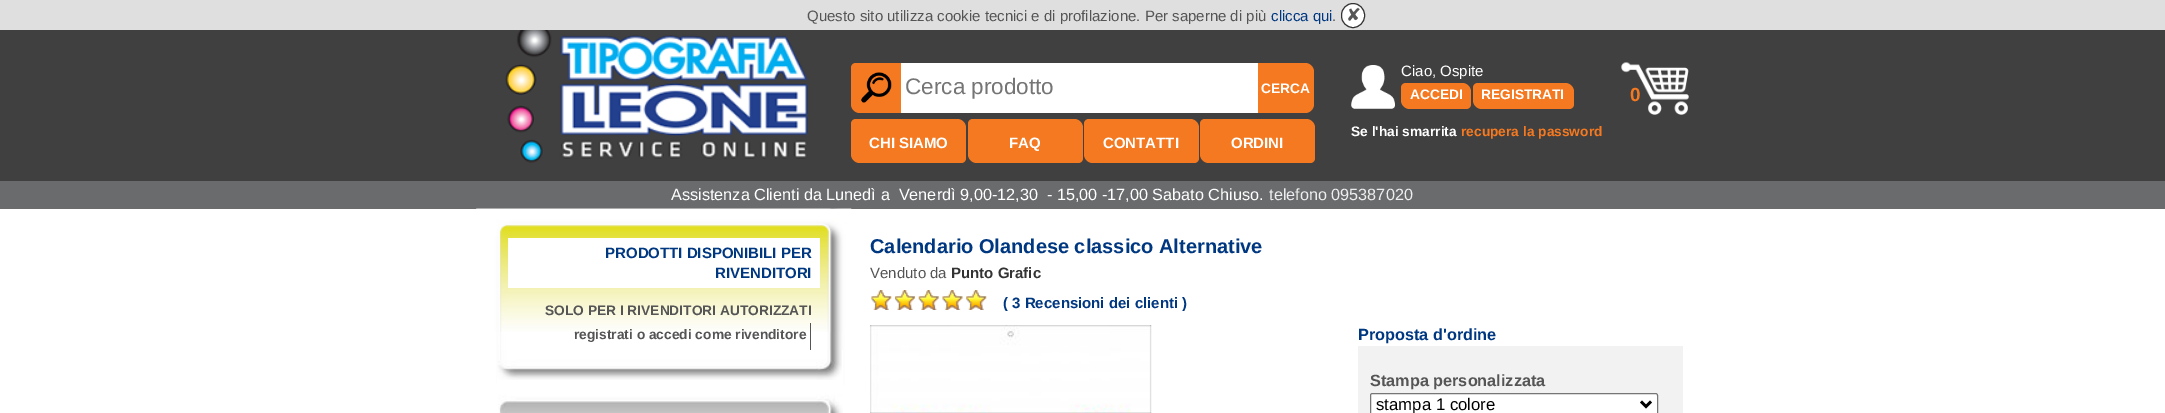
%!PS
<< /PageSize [2165 413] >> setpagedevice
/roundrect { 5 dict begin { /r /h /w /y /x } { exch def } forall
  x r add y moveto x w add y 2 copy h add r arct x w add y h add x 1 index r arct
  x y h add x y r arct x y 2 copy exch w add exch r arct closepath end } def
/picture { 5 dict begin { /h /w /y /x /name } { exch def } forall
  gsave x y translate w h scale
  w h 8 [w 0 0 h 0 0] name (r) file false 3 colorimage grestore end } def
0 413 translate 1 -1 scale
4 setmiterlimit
1 setgray
0 0 2165 413 rectfill
0.251 0.251 0.255 setrgbcolor
0 30 2165 151 rectfill
0.875 setgray
0 0 2165 30 rectfill
/LiberationSans-Regular [15 0 0 -15 0 0] selectfont
0.333 setgray
807 21 moveto (Questo sito utilizza cookie tecnici e di profilazione. Per saperne di più) show
0 0.216 0.506 setrgbcolor
1271 21 moveto (clicca qui) show
0.333 setgray
1332 21 moveto (.) show
1 setgray
1341.5 3.5 23 24 11.5 roundrect gsave fill grestore
0.2 setgray
stroke
/DejaVuSans-Regular [18 0 0 -18 0 0] selectfont
0.333 setgray
1346 21 moveto (✘) show
(img1.rgb) 505 30 304 133 picture
0.957 0.475 0.125 setrgbcolor
newpath 856 63 moveto 901 63 lineto 901 113 lineto 860 113 lineto 855 113 851 109 851 104 curveto 851 68 lineto 851 65 853 63 856 63 curveto closepath fill
(img2.rgb) 861 72 31 31 picture
1 setgray
901 63 357 50 rectfill
/LiberationSans-Regular [22.5 0 0 -22.5 0 0] selectfont
0.459 setgray
905 94 moveto (Cerca prodotto) show
0.957 0.475 0.125 setrgbcolor
newpath 1258 63 moveto 1305 63 lineto 1310 63 1314 67 1314 72 curveto 1314 104 lineto 1314 109 1310 113 1305 113 curveto 1258 113 lineto closepath fill
/LiberationSans-Bold [13.75 0 0 -13.75 0 0] selectfont
1 setgray
1261 93 moveto (CERCA) show
0.957 0.475 0.125 setrgbcolor
newpath 856 119 moveto 957 119 lineto 962 119 966 123 966 128 curveto 966 158 lineto 966 161 964 163 961 163 curveto 860 163 lineto 855 163 851 159 851 154 curveto 851 124 lineto 851 121 853 119 856 119 curveto closepath fill
/LiberationSans-Bold [15 0 0 -15 0 0] selectfont
1 setgray
869 148 moveto (CHI SIAMO) show
0.957 0.475 0.125 setrgbcolor
newpath 973 119 moveto 1074 119 lineto 1079 119 1083 123 1083 128 curveto 1083 158 lineto 1083 161 1081 163 1078 163 curveto 977 163 lineto 972 163 968 159 968 154 curveto 968 124 lineto 968 121 970 119 973 119 curveto closepath fill
1 setgray
1009 148 moveto (FAQ) show
0.957 0.475 0.125 setrgbcolor
newpath 1089 119 moveto 1190 119 lineto 1195 119 1199 123 1199 128 curveto 1199 158 lineto 1199 161 1197 163 1194 163 curveto 1093 163 lineto 1088 163 1084 159 1084 154 curveto 1084 124 lineto 1084 121 1086 119 1089 119 curveto closepath fill
1 setgray
1103 148 moveto (CONTATTI) show
0.957 0.475 0.125 setrgbcolor
newpath 1205 119 moveto 1306 119 lineto 1311 119 1315 123 1315 128 curveto 1315 158 lineto 1315 161 1313 163 1310 163 curveto 1209 163 lineto 1204 163 1200 159 1200 154 curveto 1200 124 lineto 1200 121 1202 119 1205 119 curveto closepath fill
1 setgray
1231 148 moveto (ORDINI) show
(img3.rgb) 1351 65 44 44 picture
/LiberationSans-Regular [15 0 0 -15 0 0] selectfont
1401 76 moveto (Ciao, Ospite) show
0.957 0.475 0.125 setrgbcolor
newpath 1406 83 moveto 1462 83 lineto 1467 83 1471 87 1471 92 curveto 1471 104 lineto 1471 107 1469 109 1466 109 curveto 1410 109 lineto 1405 109 1401 105 1401 100 curveto 1401 88 lineto 1401 85 1403 83 1406 83 curveto closepath fill
/LiberationSans-Bold [13.75 0 0 -13.75 0 0] selectfont
1 setgray
1410 99 moveto (ACCEDI) show
0.957 0.475 0.125 setrgbcolor
newpath 1478 83 moveto 1565 83 lineto 1570 83 1574 87 1574 92 curveto 1574 104 lineto 1574 107 1572 109 1569 109 curveto 1482 109 lineto 1477 109 1473 105 1473 100 curveto 1473 88 lineto 1473 85 1475 83 1478 83 curveto closepath fill
1 setgray
1481 99 moveto (REGISTRATI) show
(img4.rgb) 1621 62 68 53 picture
/LiberationSans-Bold [19 0 0 -19 0 0] selectfont
0.957 0.475 0.125 setrgbcolor
1630 101 moveto (0) show
/LiberationSans-Bold [13.75 0 0 -13.75 0 0] selectfont
1 setgray
1351 136 moveto (Se l'hai smarrita) show
0.957 0.475 0.125 setrgbcolor
1461 136 moveto (recupera la password) show
0.416 0.42 0.427 setrgbcolor
0 181 2165 28 rectfill
/LiberationSans-Regular [16.25 0 0 -16.25 0 0] selectfont
1 setgray
671 200 moveto (Assistenza Clienti da Lunedì a  Venerdì 9,00-12,30  - 15,00 -17,00 Sabato Chiuso.) show
0.933 setgray
1269 200 moveto (telefono 095387020) show
(img5.rgb) 476 208 376 177 picture
(img6.rgb) 476 208 376 124 picture
1 setgray
508 238 312 50 rectfill
/LiberationSans-Bold [15 0 0 -15 0 0] selectfont
0 0.216 0.506 setrgbcolor
605 258 moveto (PRODOTTI DISPONIBILI PER) show
715 278 moveto (RIVENDITORI) show
/LiberationSans-Bold [13.75 0 0 -13.75 0 0] selectfont
0.333 setgray
545 315 moveto (SOLO PER I RIVENDITORI AUTORIZZATI) show
810 323 1 27 rectfill
574 339 moveto (registrati o accedi come rivenditore) show
1 setgray
497 350 346 35 rectfill
(img7.rgb) 497 350 345 30 picture
(img8.rgb) 498 385 345 28 picture
/LiberationSans-Bold [20 0 0 -20 0 0] selectfont
0 0.216 0.506 setrgbcolor
870 253 moveto (Calendario Olandese classico Alternative) show
/LiberationSans-Regular [15 0 0 -15 0 0] selectfont
0.333 setgray
870 278 moveto (Venduto da) show
/LiberationSans-Bold [15 0 0 -15 0 0] selectfont
0.2 setgray
951 278 moveto (Punto Grafic) show
(img9.rgb) 871 290 21 20 picture
(img10.rgb) 895 290 20 20 picture
(img11.rgb) 918 290 21 20 picture
(img12.rgb) 942 290 21 20 picture
(img13.rgb) 966 290 21 20 picture
0 0.216 0.506 setrgbcolor
1003 308 moveto (\( 3 Recensioni dei clienti \)) show
(img14.rgb) 870 325 282 88 picture
/LiberationSans-Bold [16.25 0 0 -16.25 0 0] selectfont
1358 340 moveto (Proposta d'ordine) show
0.949 setgray
1358 346 325 67 rectfill
0.333 setgray
1370 386 moveto (Stampa personalizzata) show
1 setgray
1370.5 393.5 287 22 2 roundrect gsave fill grestore
0.463 setgray
stroke
0 setgray
2.5 setlinewidth
newpath 1641 401.5 moveto 1646 406.5 lineto 1651 401.5 lineto stroke
/LiberationSans-Regular [16.75 0 0 -16.75 0 0] selectfont
1376 410 moveto (stampa 1 colore) show
showpage
